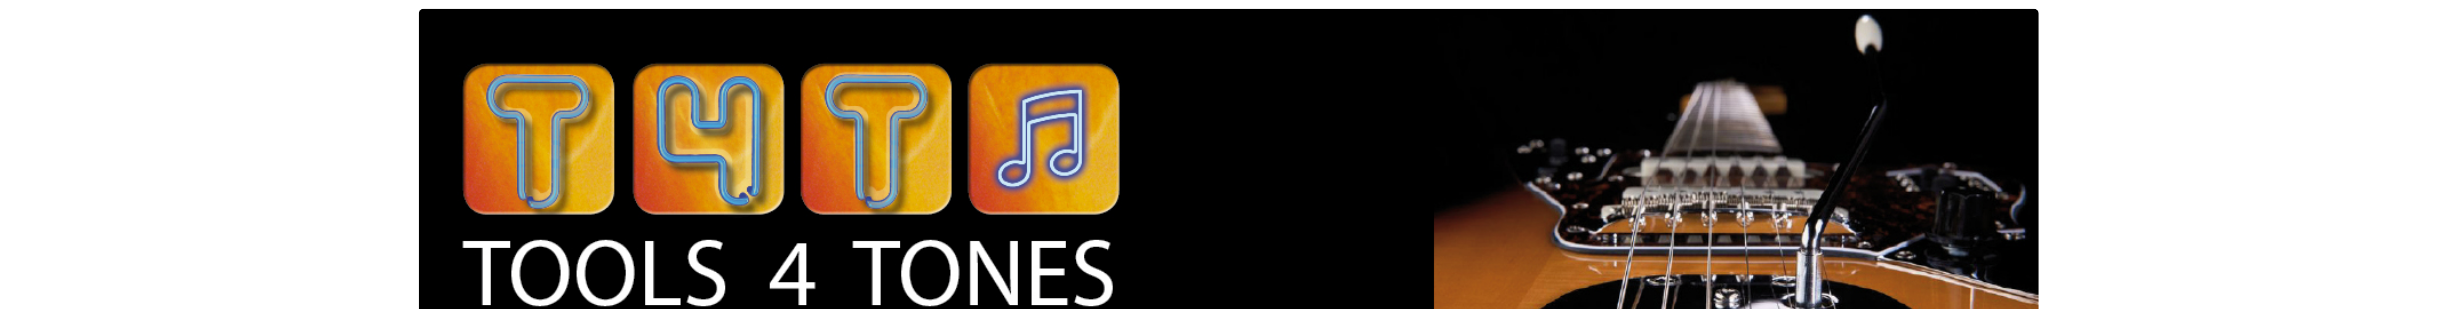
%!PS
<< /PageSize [2457 309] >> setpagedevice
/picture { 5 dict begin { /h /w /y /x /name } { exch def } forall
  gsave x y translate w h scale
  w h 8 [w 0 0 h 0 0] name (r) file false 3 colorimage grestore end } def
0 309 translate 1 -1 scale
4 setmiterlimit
1 setgray
0 0 2457 309 rectfill
(img1.rgb) 418 8 1621 301 picture
showpage
